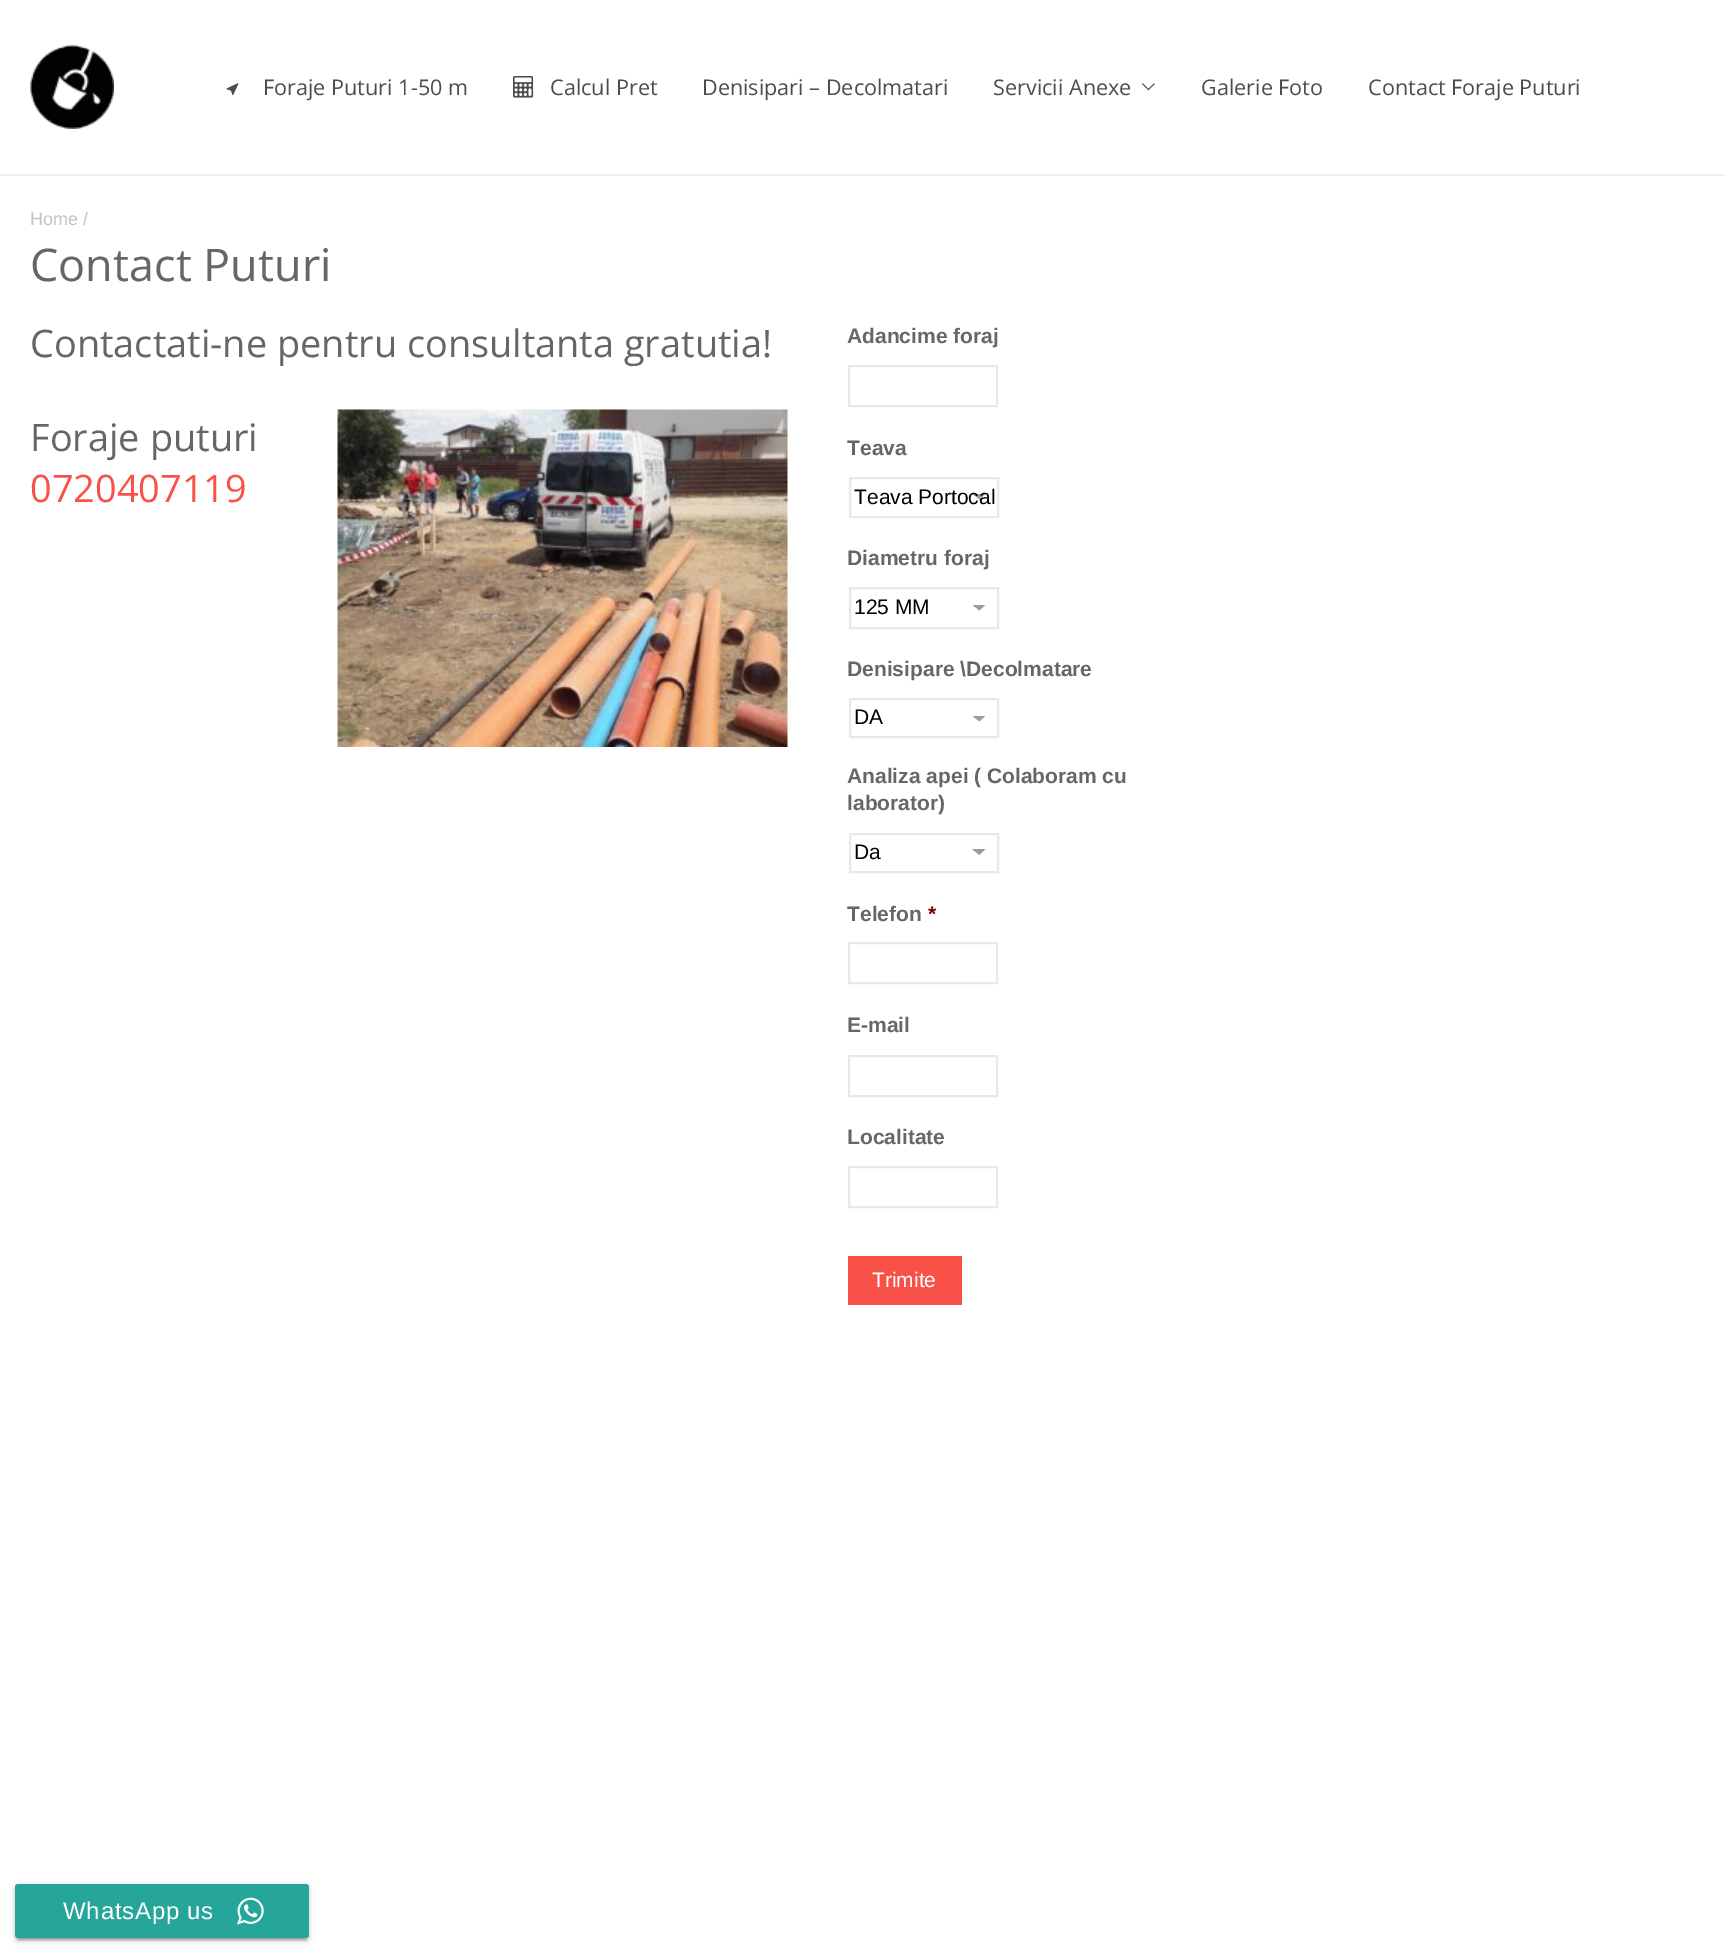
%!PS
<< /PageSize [1724 1953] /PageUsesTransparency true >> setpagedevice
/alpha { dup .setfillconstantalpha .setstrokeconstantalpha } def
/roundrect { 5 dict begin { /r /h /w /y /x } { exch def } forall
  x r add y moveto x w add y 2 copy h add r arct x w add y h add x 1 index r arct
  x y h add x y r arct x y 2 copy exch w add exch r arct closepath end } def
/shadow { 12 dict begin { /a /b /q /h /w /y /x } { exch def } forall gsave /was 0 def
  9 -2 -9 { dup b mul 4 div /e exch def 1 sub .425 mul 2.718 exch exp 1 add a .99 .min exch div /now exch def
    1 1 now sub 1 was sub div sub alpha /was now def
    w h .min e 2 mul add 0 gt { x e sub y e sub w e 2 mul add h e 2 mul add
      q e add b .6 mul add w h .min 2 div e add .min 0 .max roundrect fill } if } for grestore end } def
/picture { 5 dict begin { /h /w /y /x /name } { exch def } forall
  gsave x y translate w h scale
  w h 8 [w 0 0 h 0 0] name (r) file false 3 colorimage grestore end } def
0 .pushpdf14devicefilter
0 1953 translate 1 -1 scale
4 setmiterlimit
1 setgray
0 0 1724 1953 rectfill
0.929 setgray
0 174 1724 2 rectfill
(img1.rgb) 30 45 84 84 picture
(img2.rgb) 226 83 13 13 picture
/OpenSans-Regular [21.6 0 0 -21.6 0 0] selectfont
0.302 setgray
263 95 moveto (Foraje Puturi 1-50 m) show
(img3.rgb) 513 76 21 22 picture
550 95 moveto (Calcul Pret) show
702 95 moveto (Denisipari – Decolmatari) show
993 95 moveto (Servicii Anexe) show
(img4.rgb) 1141 83 14 8 picture
1201 95 moveto (Galerie Foto) show
1368 95 moveto (Contact Foraje Puturi) show
/LiberationSans-Regular [18 0 0 -18 0 0] selectfont
0.761 setgray
30 225 moveto (Home /) show
/OpenSans-Regular [45 0 0 -45 0 0] selectfont
0.4 setgray
30 281 moveto (Contact Puturi) show
/OpenSans-Regular [37.9 0 0 -37.9 0 0] selectfont
30 357 moveto (Contactati-ne pentru consultanta gratutia!) show
30 451 moveto (Foraje puturi) show
(img5.rgb) 337 409 451 338 picture
0.969 0.318 0.282 setrgbcolor
30 502 moveto (0720407119) show
/LiberationSans-Bold [21 0 0 -21 0 0] selectfont
0.4 setgray
847 343 moveto (Adancime foraj) show
0.91 setgray
2 setlinewidth
849 366 148 40 rectstroke
0.4 setgray
847 455 moveto (Teava) show
gsave
972 494 26 6 rectclip
0.612 setgray
newpath 972 493.5 moveto 985.5 493.5 lineto 979.5 499.5 lineto closepath fill
grestore
0.91 setgray
850 478 148 39 rectstroke
/LiberationSans-Regular [21 0 0 -21 0 0] selectfont
0 setgray
854 504 moveto (Teava Portocal) show
/LiberationSans-Bold [21 0 0 -21 0 0] selectfont
0.4 setgray
847 565 moveto (Diametru foraj) show
gsave
972 605 26 6 rectclip
0.612 setgray
newpath 972 604.5 moveto 985.5 604.5 lineto 979.5 610.5 lineto closepath fill
grestore
0.91 setgray
850 588 148 40 rectstroke
/LiberationSans-Regular [21 0 0 -21 0 0] selectfont
0 setgray
854 614 moveto (125 MM) show
/LiberationSans-Bold [21 0 0 -21 0 0] selectfont
0.4 setgray
847 676 moveto (Denisipare \\Decolmatare) show
gsave
972 716 26 6 rectclip
0.612 setgray
newpath 972 715.5 moveto 985.5 715.5 lineto 979.5 721.5 lineto closepath fill
grestore
0.91 setgray
850 699 148 38 rectstroke
/LiberationSans-Regular [21 0 0 -21 0 0] selectfont
0 setgray
854 724 moveto (DA) show
/LiberationSans-Bold [21 0 0 -21 0 0] selectfont
0.4 setgray
847 783 moveto (Analiza apei \( Colaboram cu) show
847 810 moveto (laborator\)) show
0.612 setgray
newpath 972 849 moveto 985.5 849 lineto 979.5 855 lineto closepath fill
0.91 setgray
850 834 148 38 rectstroke
/LiberationSans-Regular [21 0 0 -21 0 0] selectfont
0 setgray
854 859 moveto (Da) show
/LiberationSans-Bold [21 0 0 -21 0 0] selectfont
0.4 setgray
847 921 moveto (Telefon) show
0.475 0 0 setrgbcolor
928 921 moveto (*) show
0.91 setgray
849 943 148 40 rectstroke
0.4 setgray
847 1032 moveto (E-mail) show
0.91 setgray
849 1056 148 40 rectstroke
0.4 setgray
847 1144 moveto (Localitate) show
0.91 setgray
849 1167 148 40 rectstroke
0.969 0.318 0.282 setrgbcolor
848 1256 114 49 rectfill
/LiberationSans-Regular [21 0 0 -21 0 0] selectfont
1 setgray
872 1287 moveto (Trimite) show
0 setgray
18 1892 288 48 0 1 0.2 shadow
15 1886 294 54 3 4 0.12 shadow
15 1887 294 54 3 1.5 0.14 shadow
0.149 0.651 0.604 setrgbcolor
15 1884 294 54 3 roundrect fill
/LiberationSans-Regular [24 0 0 -24 0 0] selectfont
1 setgray
63 1919 moveto 0.75 0 (WhatsApp us) ashow
(img6.rgb) 237 1897 27 28 picture
.poppdf14devicefilter showpage
